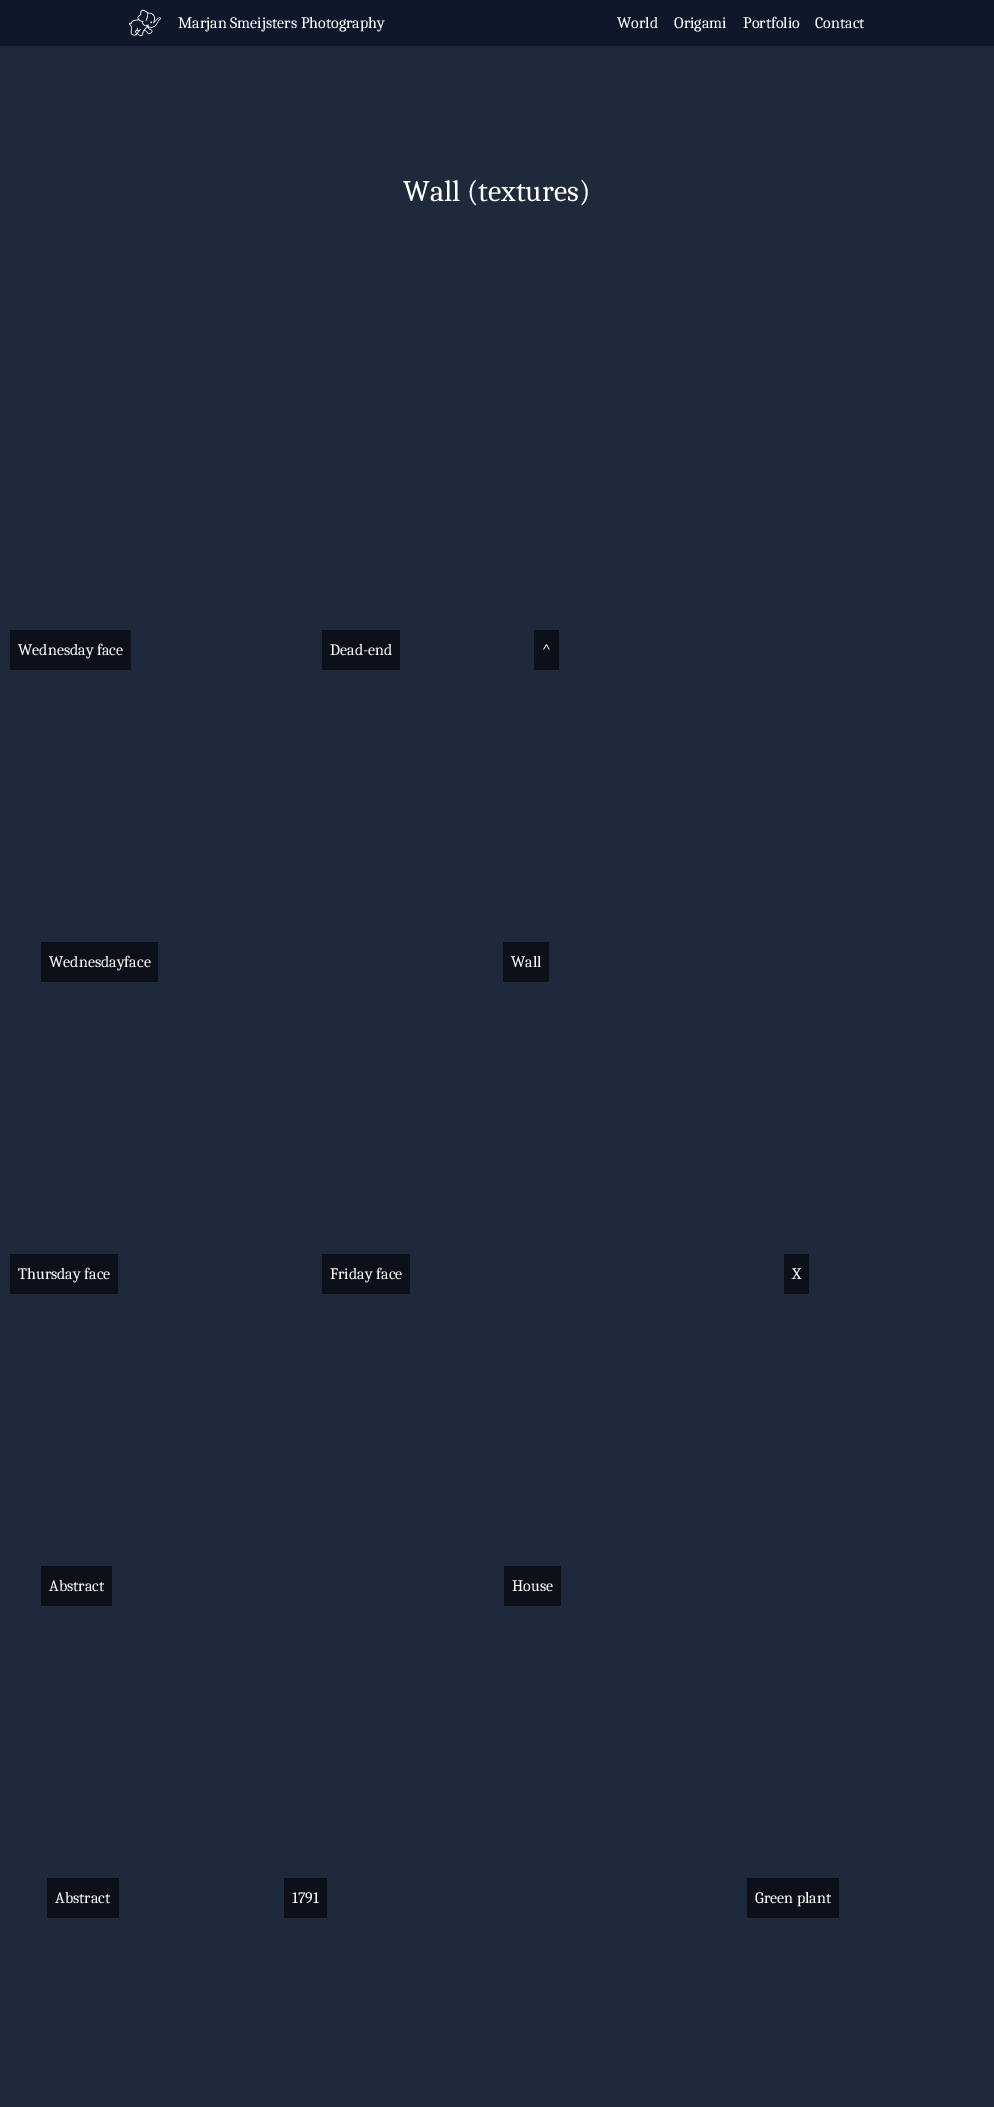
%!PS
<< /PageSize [994 2107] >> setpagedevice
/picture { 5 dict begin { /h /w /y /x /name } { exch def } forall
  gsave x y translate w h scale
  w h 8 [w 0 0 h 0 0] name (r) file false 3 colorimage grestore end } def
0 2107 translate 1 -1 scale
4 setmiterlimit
0.118 0.161 0.231 setrgbcolor
0 0 994 2107 rectfill
0.059 0.09 0.165 setrgbcolor
0 0 994 46 rectfill
(img1.rgb) 129 9 32 28 picture
/Caladea-Regular [16 0 0 -16 0 0] selectfont
1 setgray
178 28 moveto (Marjan Smeijsters Photography) show
617 28 moveto (World) show
674 28 moveto (Origami) show
743 28 moveto (Portfolio) show
815 28 moveto (Contact) show
/Caladea-Regular [30 0 0 -30 0 0] selectfont
403 201 moveto (Wall \(textures\)) show
0.047 0.063 0.094 setrgbcolor
10 630 121 40 rectfill
/Caladea-Regular [16 0 0 -16 0 0] selectfont
1 setgray
18 655 moveto (Wednesday face) show
0.047 0.063 0.094 setrgbcolor
322 630 78 40 rectfill
1 setgray
330 655 moveto (Dead-end) show
0.047 0.063 0.094 setrgbcolor
534 630 25 40 rectfill
1 setgray
542 655 moveto (^) show
0.047 0.063 0.094 setrgbcolor
41 942 117 40 rectfill
1 setgray
49 967 moveto (Wednesdayface) show
0.047 0.063 0.094 setrgbcolor
503 942 46 40 rectfill
1 setgray
511 967 moveto (Wall) show
0.047 0.063 0.094 setrgbcolor
10 1254 108 40 rectfill
1 setgray
18 1279 moveto (Thursday face) show
0.047 0.063 0.094 setrgbcolor
322 1254 88 40 rectfill
1 setgray
330 1279 moveto (Friday face) show
0.047 0.063 0.094 setrgbcolor
784 1254 25 40 rectfill
1 setgray
792 1279 moveto (X) show
0.047 0.063 0.094 setrgbcolor
41 1566 71 40 rectfill
1 setgray
49 1591 moveto (Abstract) show
0.047 0.063 0.094 setrgbcolor
504 1566 57 40 rectfill
1 setgray
512 1591 moveto (House) show
0.047 0.063 0.094 setrgbcolor
47 1878 72 40 rectfill
1 setgray
55 1903 moveto (Abstract) show
0.047 0.063 0.094 setrgbcolor
284 1878 43 40 rectfill
1 setgray
292 1903 moveto (1791) show
0.047 0.063 0.094 setrgbcolor
747 1878 92 40 rectfill
1 setgray
755 1903 moveto (Green plant) show
showpage
